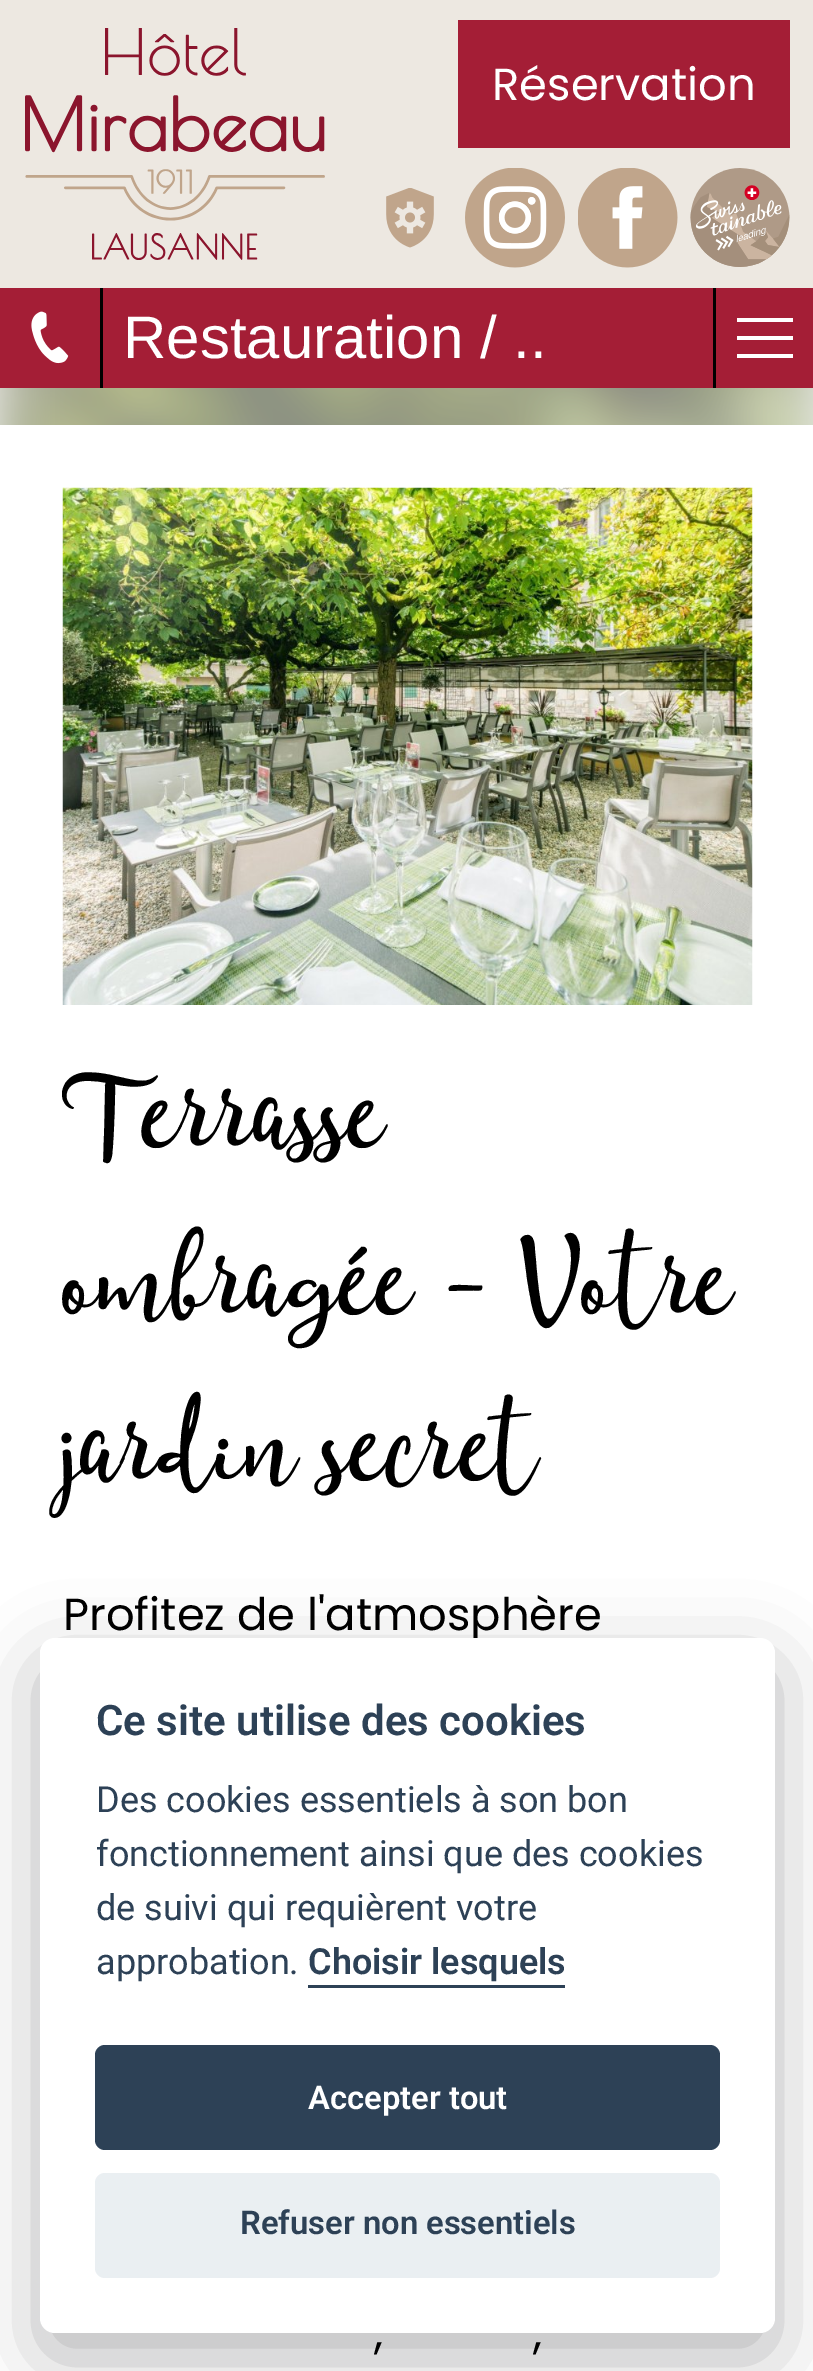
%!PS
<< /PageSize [813 2371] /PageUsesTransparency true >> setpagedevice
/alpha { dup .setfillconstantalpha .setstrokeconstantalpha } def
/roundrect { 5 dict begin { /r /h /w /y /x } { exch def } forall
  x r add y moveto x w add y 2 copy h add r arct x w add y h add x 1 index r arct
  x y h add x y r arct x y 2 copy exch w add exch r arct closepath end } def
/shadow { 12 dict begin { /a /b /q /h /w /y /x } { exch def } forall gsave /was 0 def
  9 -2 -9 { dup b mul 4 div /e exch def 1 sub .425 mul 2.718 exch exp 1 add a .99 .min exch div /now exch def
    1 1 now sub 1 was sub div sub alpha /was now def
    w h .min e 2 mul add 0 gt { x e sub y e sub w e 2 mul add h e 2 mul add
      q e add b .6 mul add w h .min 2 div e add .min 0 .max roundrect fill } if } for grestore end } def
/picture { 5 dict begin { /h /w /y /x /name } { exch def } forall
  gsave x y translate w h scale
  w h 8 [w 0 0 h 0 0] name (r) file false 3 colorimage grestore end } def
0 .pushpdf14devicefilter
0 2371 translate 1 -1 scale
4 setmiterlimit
1 setgray
0 0 813 2371 rectfill
(img1.rgb) 0 388 813 37 picture
0.929 0.91 0.882 setrgbcolor
0 0 813 288 rectfill
(img2.rgb) 25 28 300 232 picture
0.643 0.118 0.212 setrgbcolor
458 20 332 128 rectfill
/Poppins-Regular [44.9 0 0 -44.9 0 0] selectfont
1 setgray
492 100 moveto (Réservation) show
(img3.rgb) 386 188 48 60 picture
(img4.rgb) 465 168 100 100 picture
(img5.rgb) 578 168 100 100 picture
(img6.rgb) 690 168 100 99 picture
0.643 0.118 0.212 setrgbcolor
0 288 813 100 rectfill
0 setgray
100 288 3 100 rectfill
(img7.rgb) 31 311 38 53 picture
/LiberationSans-Regular [60 0 0 -60 0 0] selectfont
1 setgray
123 358 moveto (Restauration / ..) show
0 setgray
713 288 3 100 rectfill
1 setgray
737 318 56 4 rectfill
737 336 56 4 rectfill
737 354 56 4 rectfill
(img8.rgb) 62 487 691 518 picture
/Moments-Regular [128 0 0 -128 0 0] selectfont
0 setgray
63 1161 moveto (Terrasse) show
63 1328 moveto (ombragée - Votre) show
63 1494 moveto (jardin secret) show
/Poppins-Regular [44.9 0 0 -44.9 0 0] selectfont
63 1630 moveto (Profitez de l'atmosphère) show
374 2348 moveto (,) show
533 2348 moveto (,) show
(img9.rgb) 0 388 813 37 picture
0.008 0.008 0.012 setrgbcolor
40 1663 735 695 15 37.5 0.28 shadow
1 setgray
40 1638 735 695 15 roundrect fill
/Roboto-SemiBold [42 0 0 -42 0 0] selectfont
0.176 0.255 0.337 setrgbcolor
96 1735 moveto (Ce site utilise des cookies) show
/Roboto-Regular [36 0 0 -36 0 0] selectfont
96 1812 moveto (Des cookies essentiels à son bon) show
96 1866 moveto (fonctionnement ainsi que des cookies) show
96 1920 moveto (de suivi qui requièrent votre) show
96 1974 moveto (approbation.) show
/Roboto-SemiBold [36 0 0 -36 0 0] selectfont
308 1974 moveto (Choisir lesquels) show
308 1985 257 3 rectfill
95 2045 625 105 10 roundrect fill
/Roboto-SemiBold [32.75 0 0 -32.75 0 0] selectfont
1 setgray
308 2109 moveto (Accepter tout) show
0.918 0.937 0.949 setrgbcolor
95 2173 625 105 10 roundrect fill
0.176 0.255 0.337 setrgbcolor
240 2234 moveto (Refuser non essentiels) show
.poppdf14devicefilter showpage
